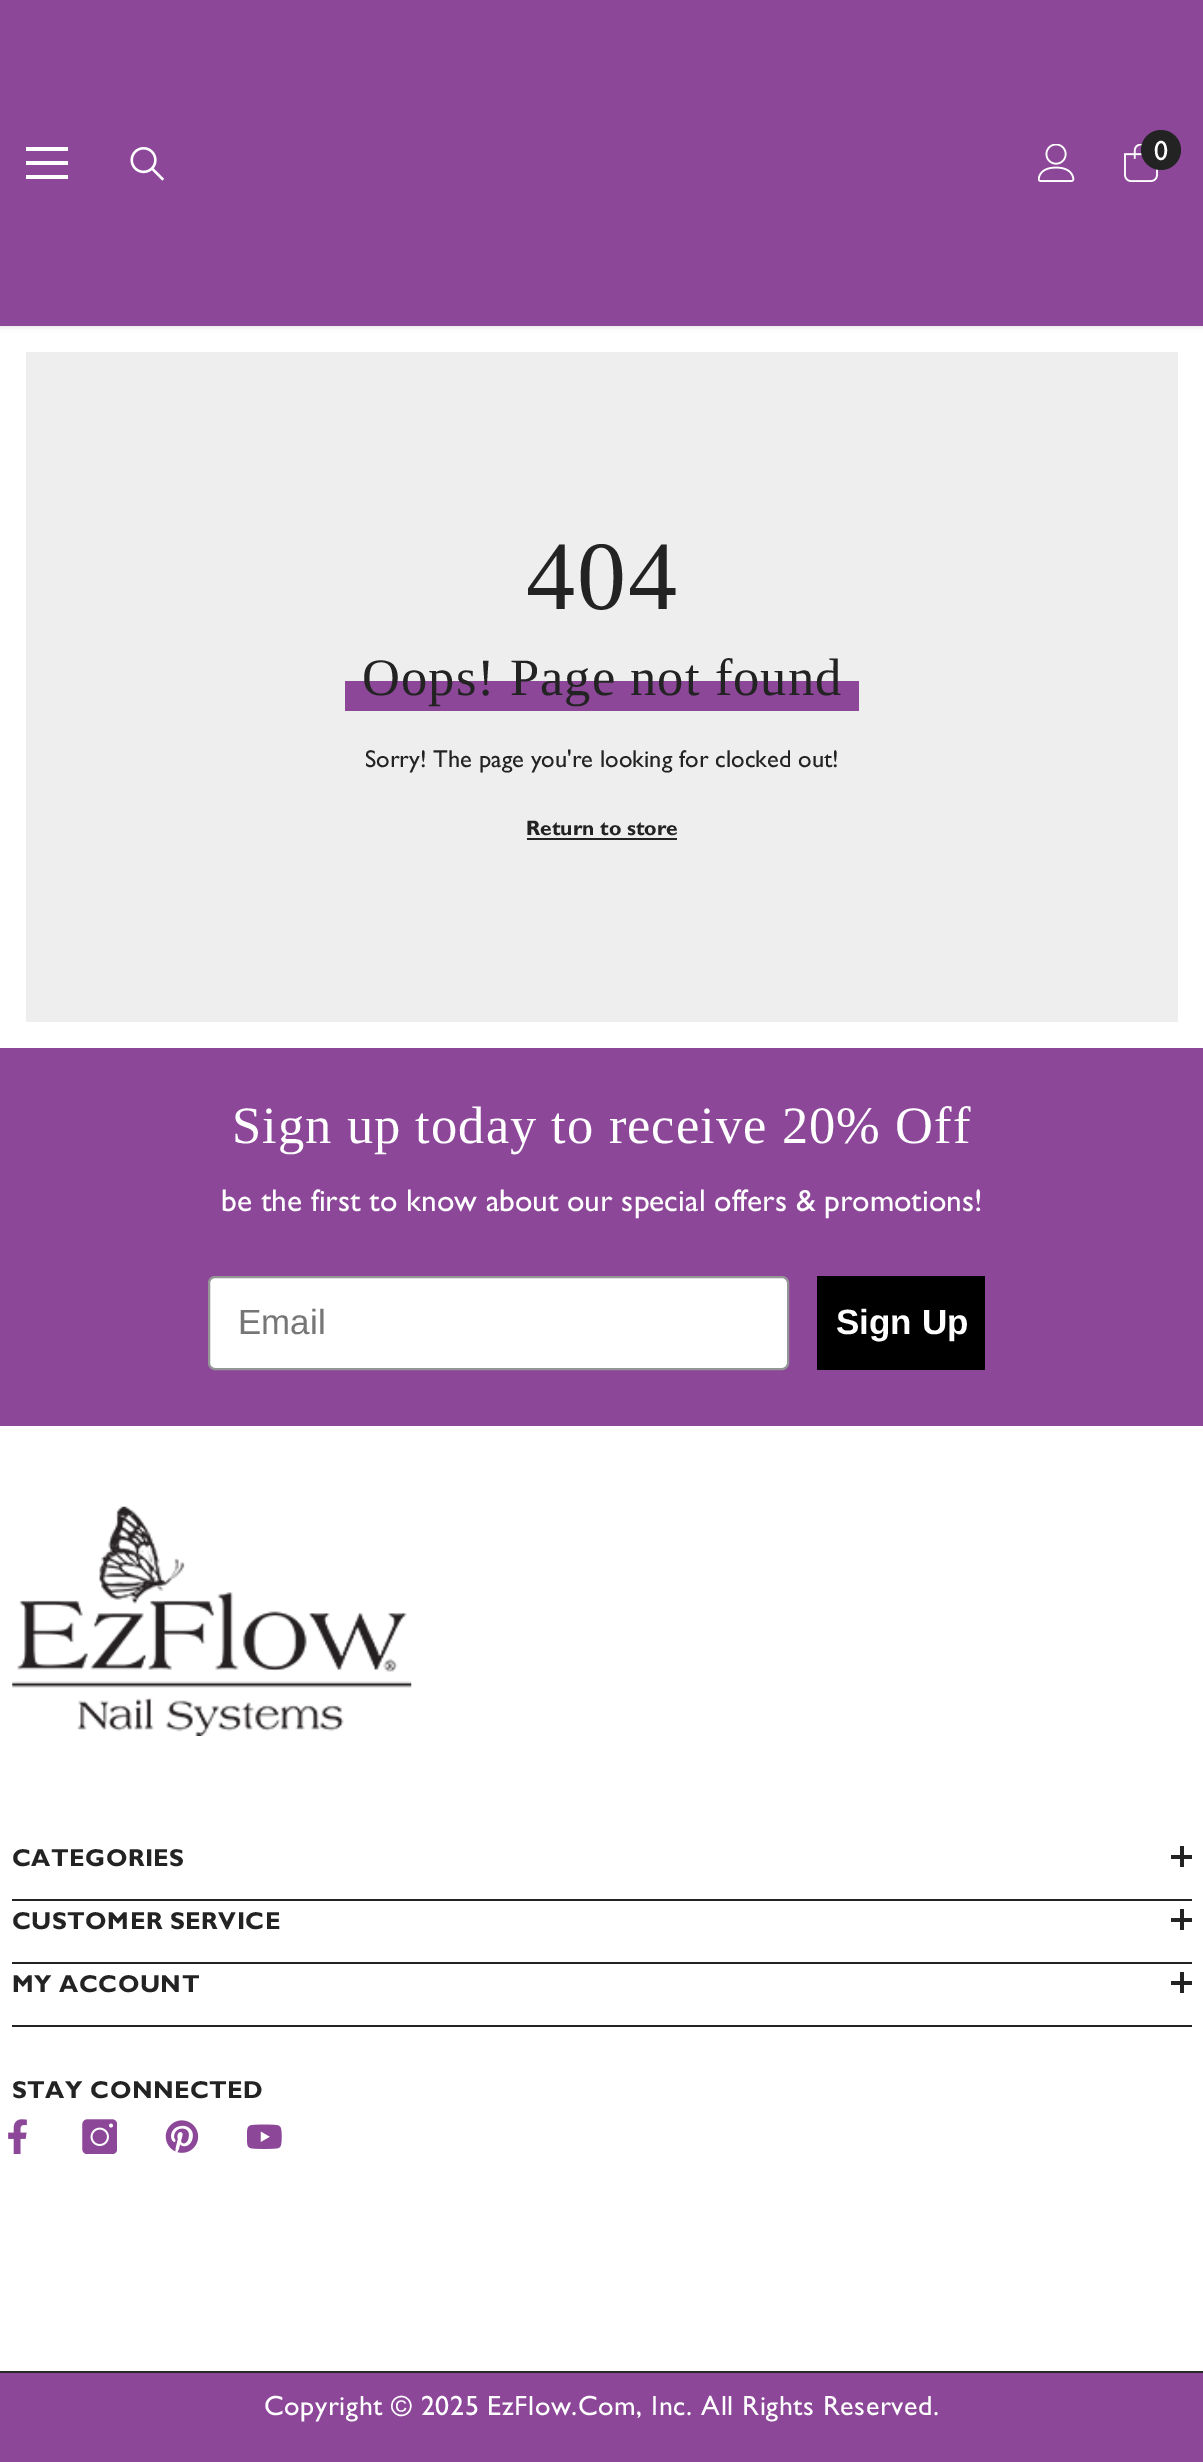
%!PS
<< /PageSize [1203 2462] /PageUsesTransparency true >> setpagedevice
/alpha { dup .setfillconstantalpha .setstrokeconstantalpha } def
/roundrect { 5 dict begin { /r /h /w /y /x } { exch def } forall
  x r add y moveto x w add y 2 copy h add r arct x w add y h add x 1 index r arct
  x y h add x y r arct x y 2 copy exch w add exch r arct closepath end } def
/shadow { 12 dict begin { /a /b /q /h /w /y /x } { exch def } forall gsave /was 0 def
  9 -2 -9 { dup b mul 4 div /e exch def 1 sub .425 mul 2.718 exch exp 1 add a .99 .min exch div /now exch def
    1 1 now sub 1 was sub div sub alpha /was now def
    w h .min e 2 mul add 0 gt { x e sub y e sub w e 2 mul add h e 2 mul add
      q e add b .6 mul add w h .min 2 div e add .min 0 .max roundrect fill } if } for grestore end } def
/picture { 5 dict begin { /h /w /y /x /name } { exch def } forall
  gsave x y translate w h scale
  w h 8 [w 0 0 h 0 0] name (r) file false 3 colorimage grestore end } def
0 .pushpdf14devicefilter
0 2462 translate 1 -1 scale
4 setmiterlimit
1 setgray
0 0 1203 2462 rectfill
0 setgray
0 2 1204 325 0 2.5 0.1 shadow
0.549 0.278 0.6 setrgbcolor
0 0 1203 326 rectfill
1 setgray
26 161 42 4 rectfill
26 147 42 4 rectfill
26 175 42 4 rectfill
(img1.rgb) 130 146 35 35 picture
(img2.rgb) 1038 144 37 38 picture
(img3.rgb) 1124 144 34 38 picture
0.137 setgray
newpath 1161 150 20 0 360 arc closepath fill
/GillSans-Regular [28 0 0 -28 0 0] selectfont
1 setgray
1154 160 moveto (0) show
0.933 setgray
26 352 1152 670 rectfill
/LiberationSerif-Regular [98 0 0 -98 0 0] selectfont
0.137 setgray
526 609 moveto 2 0 (404) ashow
0.549 0.278 0.6 setrgbcolor
345 681 514 30 rectfill
/LiberationSerif-Regular [52.5 0 0 -52.5 0 0] selectfont
0.137 setgray
362 695 moveto 1.05 0 (Oops! Page not found) ashow
/GillSans-Regular [24.5 0 0 -24.5 0 0] selectfont
365 767 moveto (Sorry! The page you're looking for clocked out!) show
/GillSans-Bold [21 0 0 -21 0 0] selectfont
526 835 moveto (Return to store) show
527 838 150 2 rectfill
0.549 0.278 0.6 setrgbcolor
0 1048 1203 378 rectfill
/LiberationSerif-Regular [52.5 0 0 -52.5 0 0] selectfont
1 setgray
232 1143 moveto 1.05 0 (Sign up today to receive 20% Off) ashow
/GillSans-Regular [31.5 0 0 -31.5 0 0] selectfont
221 1211 moveto (be the first to know about our special offers & promotions!) show
209 1277 579 92 6 roundrect gsave fill grestore
0.58 0.584 0.588 setrgbcolor
2 setlinewidth
stroke
/LiberationSans-Regular [35 0 0 -35 0 0] selectfont
0.463 setgray
238 1334 moveto (Email) show
0 setgray
817 1276 168 94 rectfill
/LiberationSans-Bold [35 0 0 -35 0 0] selectfont
1 setgray
836 1334 moveto (Sign Up) show
(img4.rgb) 12 1506 400 230 picture
0.137 setgray
12 1899 1180 2 rectfill
/GillSans-Bold [24.5 0 0 -24.5 0 0] selectfont
12 1866 moveto 0.5 0 (CATEGORIES) ashow
1180 1846 4 21 rectfill
1171 1855 21 4 rectfill
12 1962 1180 2 rectfill
12 1929 moveto 0.5 0 (CUSTOMER SERVICE) ashow
1180 1909 4 21 rectfill
1171 1918 21 4 rectfill
12 2025 1180 2 rectfill
12 1992 moveto 0.5 0 (MY ACCOUNT) ashow
1180 1972 4 21 rectfill
1171 1981 21 4 rectfill
12 2098 moveto 0.5 0 (STAY CONNECTED) ashow
(img5.rgb) 8 2119 19 35 picture
(img6.rgb) 82 2119 35 35 picture
(img7.rgb) 165 2120 34 33 picture
(img8.rgb) 247 2124 35 25 picture
0.549 0.278 0.6 setrgbcolor
0 2373 1203 89 rectfill
0.157 setgray
0 2371 1203 2 rectfill
/GillSans-Regular [28 0 0 -28 0 0] selectfont
1 setgray
264 2415 moveto 0.55 0 (Copyright © 2025 EzFlow.Com, Inc. All Rights Reserved.) ashow
.poppdf14devicefilter showpage
